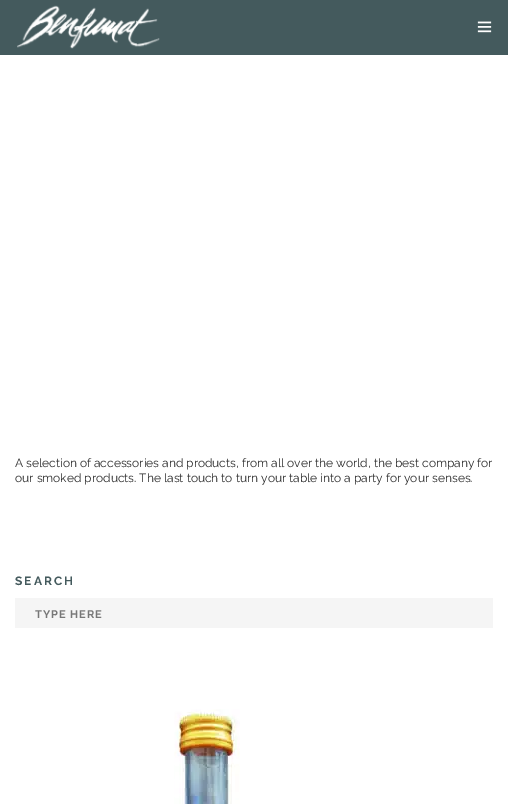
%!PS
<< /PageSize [508 804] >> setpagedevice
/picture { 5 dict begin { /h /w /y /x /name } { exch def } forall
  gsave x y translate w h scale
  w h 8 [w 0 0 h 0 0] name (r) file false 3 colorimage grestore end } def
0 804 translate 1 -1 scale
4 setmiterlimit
1 setgray
0 0 508 804 rectfill
0.267 0.353 0.365 setrgbcolor
0 0 508 55 rectfill
(img1.rgb) 17 5 143 44 picture
(img2.rgb) 477 21 15 12 picture
/Raleway-Thin [12 0 0 -12 0 0] selectfont
0.161 setgray
15 467 moveto (A selection of accessories and products, from all over the world, the best company for) show
15 482 moveto (our smoked products. The last touch to turn your table into a party for your senses.) show
/Raleway-Bold [12 0 0 -12 0 0] selectfont
0.267 0.353 0.365 setrgbcolor
15 585 moveto 2 0 (SEARCH) ashow
0.961 setgray
15 598 478 30 rectfill
/Raleway-Bold [11 0 0 -11 0 0] selectfont
0.467 setgray
35 618 moveto 1 0 (TYPE HERE) ashow
(img3.rgb) 174 709 66 95 picture
showpage
